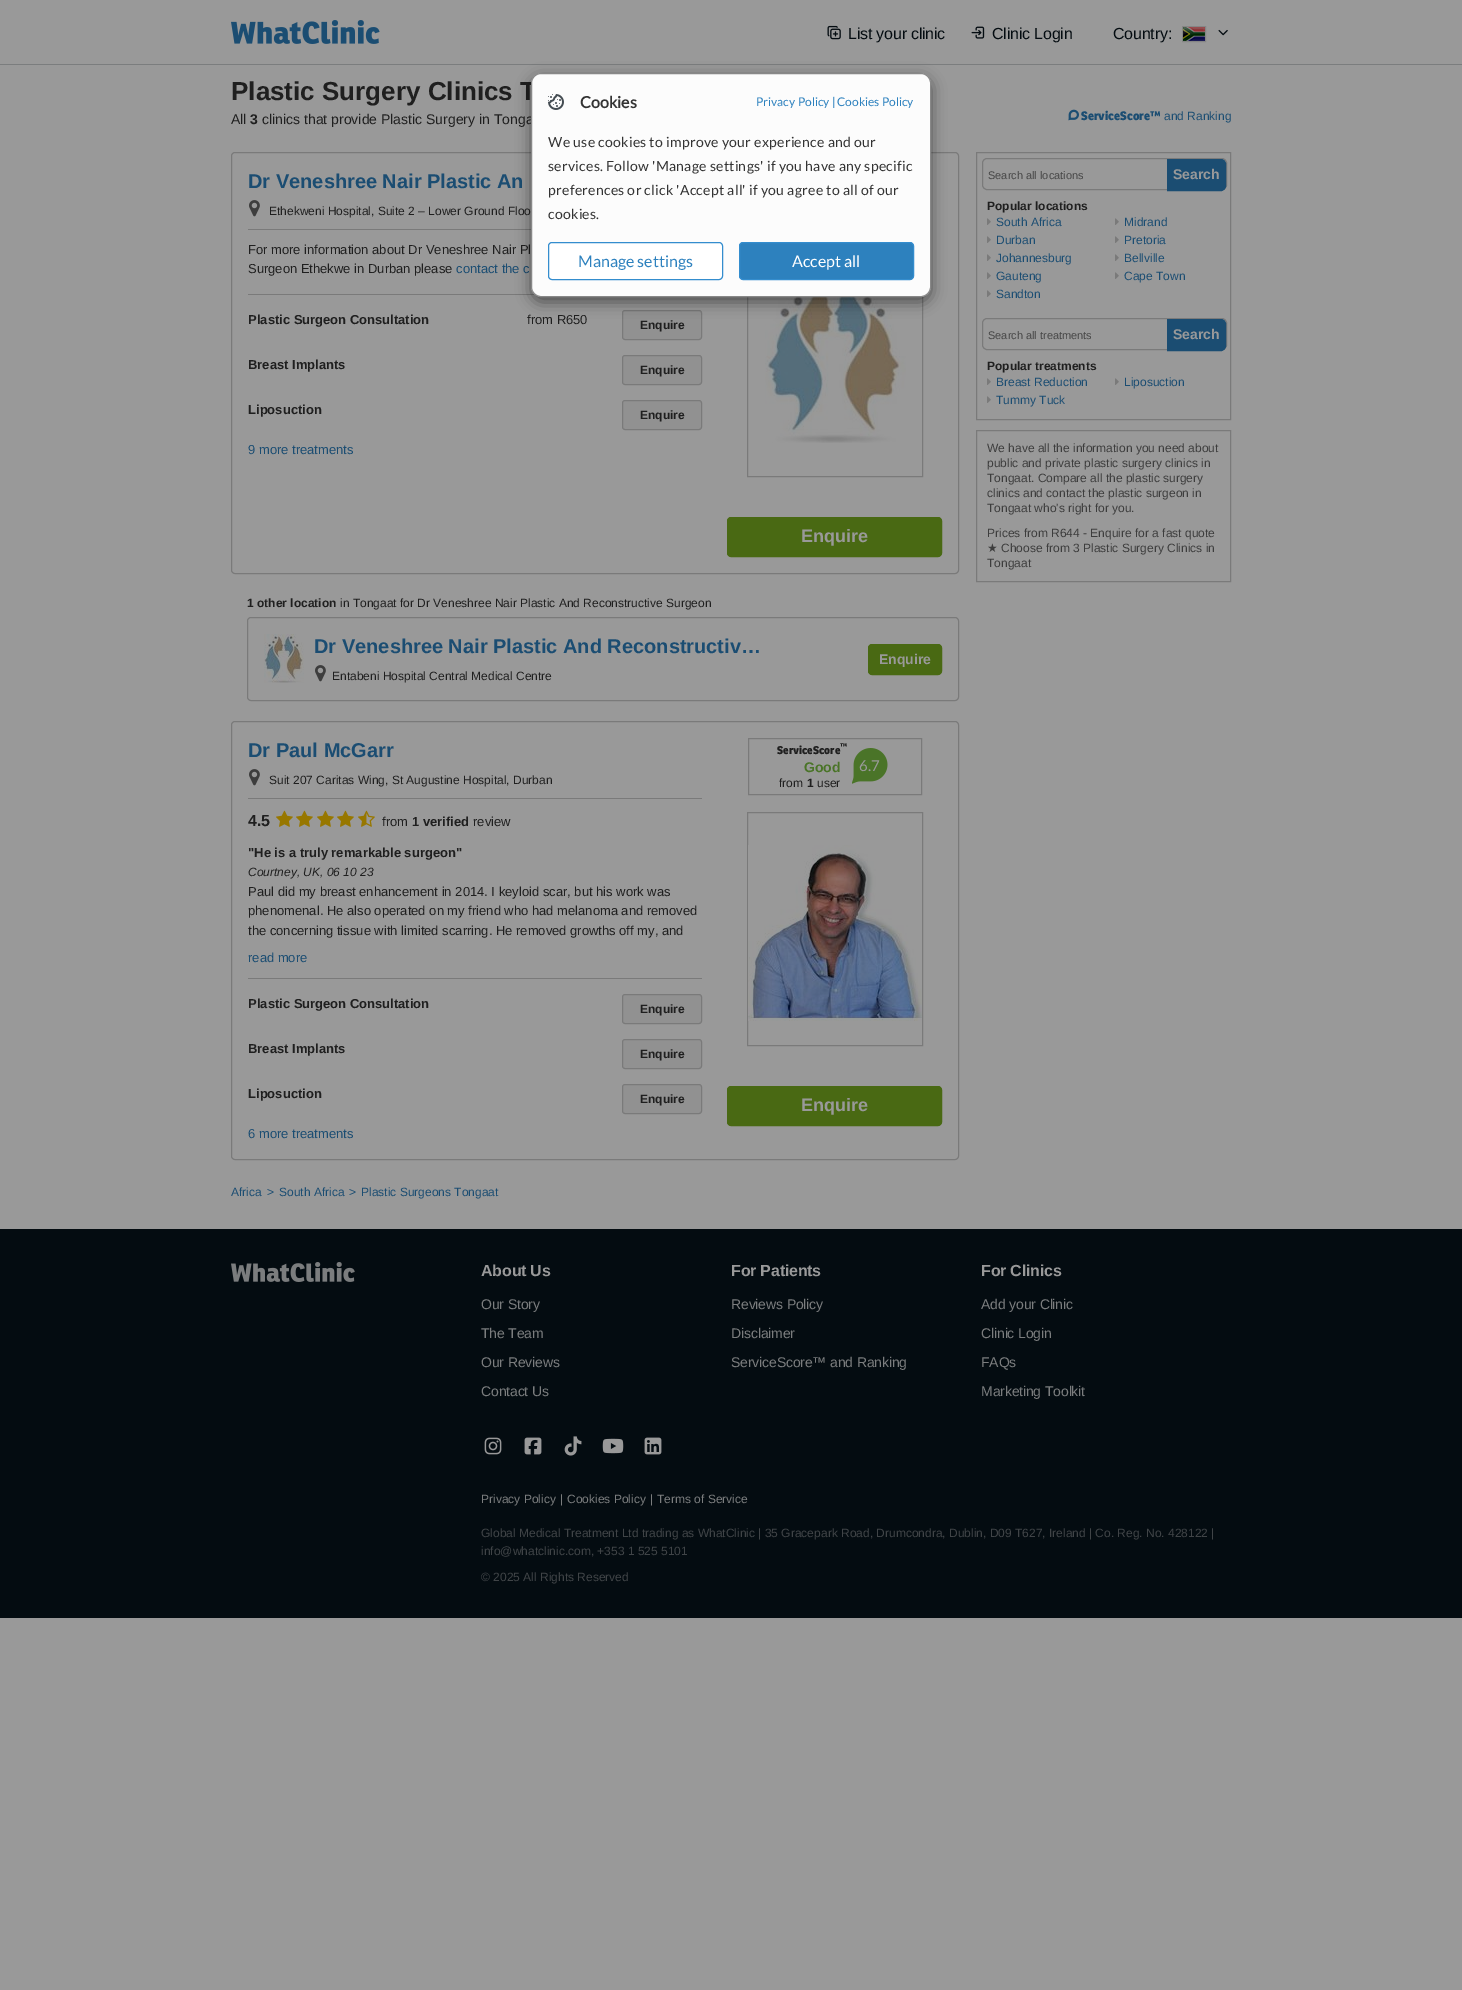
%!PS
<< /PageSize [1462 1990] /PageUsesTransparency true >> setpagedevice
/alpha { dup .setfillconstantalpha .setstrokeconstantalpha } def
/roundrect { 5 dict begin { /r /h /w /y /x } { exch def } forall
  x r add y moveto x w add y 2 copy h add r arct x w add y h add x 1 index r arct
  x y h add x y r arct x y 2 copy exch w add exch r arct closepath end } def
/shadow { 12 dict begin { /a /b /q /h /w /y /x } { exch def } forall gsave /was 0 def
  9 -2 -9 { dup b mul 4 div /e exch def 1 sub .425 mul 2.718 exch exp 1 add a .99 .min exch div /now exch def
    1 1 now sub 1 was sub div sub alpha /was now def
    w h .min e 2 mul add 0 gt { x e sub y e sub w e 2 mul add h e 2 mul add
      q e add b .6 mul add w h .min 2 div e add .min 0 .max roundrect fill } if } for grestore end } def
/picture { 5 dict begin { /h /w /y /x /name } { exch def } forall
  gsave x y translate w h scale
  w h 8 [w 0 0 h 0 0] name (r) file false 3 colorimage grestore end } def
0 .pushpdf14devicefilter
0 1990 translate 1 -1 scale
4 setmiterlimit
0.6 setgray
0 0 1462 1990 rectfill
0.482 0.49 0.494 setrgbcolor
0 64 1462 1 rectfill
(img1.rgb) 231 20 149 24 picture
(img2.rgb) 827 25 14 15 picture
/LiberationSans-Regular [16 0 0 -16 0 0] selectfont
0.016 0.047 0.067 setrgbcolor
848 39 moveto -0.2 0 (List your clinic) ashow
(img3.rgb) 971 26 14 13 picture
992 39 moveto -0.2 0 (Clinic Login) ashow
1113 39 moveto -0.2 0 (Country:) ashow
0.522 setgray
1182.5 26.5 23 15 rectstroke
(img4.rgb) 1183 27 22 14 picture
(img5.rgb) 1218 29 10 7 picture
/LiberationSans-Bold [26 0 0 -26 0 0] selectfont
0.122 setgray
231 100 moveto (Plastic Surgery Clinics T) show
/LiberationSans-Regular [14 0 0 -14 0 0] selectfont
231 124 moveto (All) show
/LiberationSans-Bold [14 0 0 -14 0 0] selectfont
250 124 moveto (3) show
/LiberationSans-Regular [14 0 0 -14 0 0] selectfont
262 124 moveto (clinics that provide Plastic Surgery in Tonga) show
0.478 setgray
231.5 152.5 727 421 3.5 roundrect stroke
248 229 283 1 rectfill
/LiberationSans-Bold [20 0 0 -20 0 0] selectfont
0.106 0.302 0.447 setrgbcolor
248 188 moveto (Dr Veneshree Nair Plastic An) show
(img6.rgb) 249 200 11 17 picture
/LiberationSans-Regular [12 0 0 -12 0 0] selectfont
0.122 setgray
269 215 moveto (Ethekweni Hospital, Suite 2 – Lower Ground Floo) show
0.478 setgray
248 294 289 1 rectfill
/LiberationSans-Regular [13 0 0 -13 0 0] selectfont
0.122 setgray
248 254 moveto (For more information about Dr Veneshree Nair Pl) show
248 273 moveto (Surgeon Ethekwe in Durban please) show
0.106 0.302 0.447 setrgbcolor
456 273 moveto (contact the c) show
/LiberationSans-Bold [13 0 0 -13 0 0] selectfont
0.122 setgray
248 324 moveto (Plastic Surgeon Consultation) show
/LiberationSans-Regular [13 0 0 -13 0 0] selectfont
527 324 moveto (from R650) show
0.569 setgray
622.5 310.5 79 29 2.5 roundrect gsave fill grestore
0.478 setgray
stroke
/LiberationSans-Bold [12 0 0 -12 0 0] selectfont
0.122 setgray
640 329 moveto (Enquire) show
/LiberationSans-Bold [13 0 0 -13 0 0] selectfont
248 369 moveto (Breast Implants) show
0.569 setgray
622.5 355.5 79 29 2.5 roundrect gsave fill grestore
0.478 setgray
stroke
/LiberationSans-Bold [12 0 0 -12 0 0] selectfont
0.122 setgray
640 374 moveto (Enquire) show
/LiberationSans-Bold [13 0 0 -13 0 0] selectfont
248 414 moveto (Liposuction) show
0.569 setgray
622.5 400.5 79 29 2.5 roundrect gsave fill grestore
0.478 setgray
stroke
/LiberationSans-Bold [12 0 0 -12 0 0] selectfont
0.122 setgray
640 419 moveto (Enquire) show
/LiberationSans-Regular [13 0 0 -13 0 0] selectfont
0.106 0.302 0.447 setrgbcolor
248 454 moveto (9 more treatments) show
0.478 setgray
747.5 243.5 175 233 rectstroke
(img7.rgb) 765 297 141 146 picture
0.286 0.412 0.075 setrgbcolor
727.5 517.5 214 39 3.5 roundrect gsave fill grestore
stroke
/LiberationSans-Bold [18 0 0 -18 0 0] selectfont
0.6 setgray
801 542 moveto (Enquire) show
/LiberationSans-Bold [12 0 0 -12 0 0] selectfont
0.122 setgray
247 607 moveto (1 other location) show
/LiberationSans-Regular [12 0 0 -12 0 0] selectfont
340 607 moveto (in Tongaat for Dr Veneshree Nair Plastic And Reconstructive Surgeon) show
0.478 setgray
247.5 617.5 711 83 3.5 roundrect stroke
(img8.rgb) 264 634 40 49 picture
/LiberationSans-Bold [20 0 0 -20 0 0] selectfont
0.106 0.302 0.447 setrgbcolor
314 653 moveto (Dr Veneshree Nair Plastic And Reconstructiv…) show
(img6.rgb) 315 665 11 17 picture
/LiberationSans-Regular [12 0 0 -12 0 0] selectfont
0.122 setgray
332 680 moveto (Entabeni Hospital Central Medical Centre) show
0.286 0.412 0.075 setrgbcolor
868.5 644.5 73 30 3.5 roundrect gsave fill grestore
stroke
/LiberationSans-Bold [14 0 0 -14 0 0] selectfont
0.6 setgray
879 664 moveto (Enquire) show
0.478 setgray
231.5 721.5 727 438 3.5 roundrect stroke
248 798 454 1 rectfill
/LiberationSans-Bold [20 0 0 -20 0 0] selectfont
0.106 0.302 0.447 setrgbcolor
248 757 moveto (Dr Paul McGarr) show
(img6.rgb) 249 769 11 17 picture
/LiberationSans-Regular [12 0 0 -12 0 0] selectfont
0.122 setgray
269 784 moveto (Suit 207 Caritas Wing, St Augustine Hospital, Durban) show
0.478 setgray
748.5 738.5 173 56 rectstroke
/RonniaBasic-ExtraBold [11 0 0 -11 0 0] selectfont
0.122 setgray
777 754 moveto (ServiceScore) show
/RonniaBasic-ExtraBold [8 0 0 -8 0 0] selectfont
840 749 moveto (™) show
/LiberationSans-Bold [14 0 0 -14 0 0] selectfont
0.29 0.455 0.157 setrgbcolor
804 772 moveto (Good) show
/LiberationSans-Regular [12 0 0 -12 0 0] selectfont
0.122 setgray
779 787 moveto (from) show
/LiberationSans-Bold [12 0 0 -12 0 0] selectfont
807 787 moveto (1) show
/LiberationSans-Regular [12 0 0 -12 0 0] selectfont
817 787 moveto (user) show
(img9.rgb) 852 748 36 36 picture
/Lato-Regular [15 0 0 -15 0 0] selectfont
0.6 setgray
859 771 moveto (6.7) show
0.478 setgray
747.5 812.5 175 233 rectstroke
(img10.rgb) 748 845 174 176 picture
0.286 0.412 0.075 setrgbcolor
727.5 1086.5 214 39 3.5 roundrect gsave fill grestore
stroke
/LiberationSans-Bold [18 0 0 -18 0 0] selectfont
0.6 setgray
801 1111 moveto (Enquire) show
0.478 setgray
248 978 454 1 rectfill
/LiberationSans-Bold [16 0 0 -16 0 0] selectfont
0.122 setgray
248 826 moveto (4.5) show
(img11.rgb) 276 810 17 17 picture
(img11.rgb) 296 810 17 17 picture
(img11.rgb) 317 810 17 17 picture
(img11.rgb) 337 810 17 17 picture
(img12.rgb) 358 810 17 17 picture
/LiberationSans-Regular [13 0 0 -13 0 0] selectfont
382 826 moveto (from) show
/LiberationSans-Bold [13 0 0 -13 0 0] selectfont
412 826 moveto (1 verified) show
/LiberationSans-Regular [13 0 0 -13 0 0] selectfont
473 826 moveto (review) show
/LiberationSans-Bold [13 0 0 -13 0 0] selectfont
248 857 moveto ("He is a truly remarkable surgeon") show
/LiberationSans-Italic [12 0 0 -12 0 0] selectfont
248 876 moveto (Courtney, UK, 06 10 23) show
/LiberationSans-Regular [13 0 0 -13 0 0] selectfont
248 896 moveto (Paul did my breast enhancement in 2014. I keyloid scar, but his work was) show
248 915 moveto (phenomenal. He also operated on my friend who had melanoma and removed) show
248 935 moveto (the concerning tissue with limited scarring. He removed growths off my, and) show
0.106 0.302 0.447 setrgbcolor
248 962 moveto (read more) show
/LiberationSans-Bold [13 0 0 -13 0 0] selectfont
0.122 setgray
248 1008 moveto (Plastic Surgeon Consultation) show
0.569 setgray
622.5 994.5 79 29 2.5 roundrect gsave fill grestore
0.478 setgray
stroke
/LiberationSans-Bold [12 0 0 -12 0 0] selectfont
0.122 setgray
640 1013 moveto (Enquire) show
/LiberationSans-Bold [13 0 0 -13 0 0] selectfont
248 1053 moveto (Breast Implants) show
0.569 setgray
622.5 1039.5 79 29 2.5 roundrect gsave fill grestore
0.478 setgray
stroke
/LiberationSans-Bold [12 0 0 -12 0 0] selectfont
0.122 setgray
640 1058 moveto (Enquire) show
/LiberationSans-Bold [13 0 0 -13 0 0] selectfont
248 1098 moveto (Liposuction) show
0.569 setgray
622.5 1084.5 79 29 2.5 roundrect gsave fill grestore
0.478 setgray
stroke
/LiberationSans-Bold [12 0 0 -12 0 0] selectfont
0.122 setgray
640 1103 moveto (Enquire) show
/LiberationSans-Regular [13 0 0 -13 0 0] selectfont
0.106 0.302 0.447 setrgbcolor
248 1138 moveto (6 more treatments) show
/LiberationSans-Regular [12 0 0 -12 0 0] selectfont
231 1196 moveto (Africa) show
267 1196 moveto (>) show
279 1196 moveto (South Africa) show
349 1196 moveto (>) show
361 1196 moveto (Plastic Surgeons Tongaat) show
(img13.rgb) 1068 109 11 12 picture
/RonniaBasic-ExtraBold [12 0 0 -12 0 0] selectfont
1081 120 moveto (ServiceScore™) show
/LiberationSans-Regular [12 0 0 -12 0 0] selectfont
1164 120 moveto (and Ranking) show
0.478 setgray
976.5 152.5 254 267 rectstroke
982.5 158.5 244 31 4.5 roundrect stroke
/LiberationSans-Regular [11 0 0 -11 0 0] selectfont
0.275 setgray
988 179 moveto (Search all locations) show
0.106 0.302 0.447 setrgbcolor
newpath 1167.5 159.5 moveto 1221 159.5 lineto 1223.5 159.5 1225.5 161.5 1225.5 164 curveto 1225.5 186 lineto 1225.5 188.5 1223.5 190.5 1221 190.5 curveto 1167.5 190.5 lineto closepath gsave fill grestore
stroke
/LiberationSans-Bold [14 0 0 -14 0 0] selectfont
0.6 setgray
1173 179 moveto (Search) show
/LiberationSans-Bold [12 0 0 -12 0 0] selectfont
0.122 setgray
987 210 moveto (Popular locations) show
(img14.rgb) 987 218 4 7 picture
/LiberationSans-Regular [12 0 0 -12 0 0] selectfont
0.106 0.302 0.447 setrgbcolor
996 226 moveto (South Africa) show
(img14.rgb) 1115 218 4 7 picture
1124 226 moveto (Midrand) show
(img14.rgb) 987 236 4 7 picture
996 244 moveto (Durban) show
(img14.rgb) 1115 236 4 7 picture
1124 244 moveto (Pretoria) show
(img14.rgb) 987 254 4 7 picture
996 262 moveto (Johannesburg) show
(img14.rgb) 1115 254 4 7 picture
1124 262 moveto (Bellville) show
(img14.rgb) 987 272 4 7 picture
996 280 moveto (Gauteng) show
(img14.rgb) 1115 272 4 7 picture
1124 280 moveto (Cape Town) show
(img14.rgb) 987 290 4 7 picture
996 298 moveto (Sandton) show
0.478 setgray
982.5 318.5 244 31 4.5 roundrect stroke
/LiberationSans-Regular [11 0 0 -11 0 0] selectfont
0.275 setgray
988 339 moveto (Search all treatments) show
0.106 0.302 0.447 setrgbcolor
newpath 1167.5 319.5 moveto 1221 319.5 lineto 1223.5 319.5 1225.5 321.5 1225.5 324 curveto 1225.5 346 lineto 1225.5 348.5 1223.5 350.5 1221 350.5 curveto 1167.5 350.5 lineto closepath gsave fill grestore
stroke
/LiberationSans-Bold [14 0 0 -14 0 0] selectfont
0.6 setgray
1173 339 moveto (Search) show
/LiberationSans-Bold [12 0 0 -12 0 0] selectfont
0.122 setgray
987 370 moveto (Popular treatments) show
(img14.rgb) 987 378 4 7 picture
/LiberationSans-Regular [12 0 0 -12 0 0] selectfont
0.106 0.302 0.447 setrgbcolor
996 386 moveto (Breast Reduction) show
(img14.rgb) 1115 378 4 7 picture
1124 386 moveto (Liposuction) show
(img14.rgb) 987 396 4 7 picture
996 404 moveto (Tummy Tuck) show
0.478 setgray
976.5 430.5 254 151 rectstroke
0.239 setgray
987 452 moveto (We have all the information you need about) show
987 467 moveto (public and private plastic surgery clinics in) show
987 482 moveto (Tongaat. Compare all the plastic surgery) show
987 497 moveto (clinics and contact the plastic surgeon in) show
987 512 moveto (Tongaat who's right for you.) show
987 537 moveto (Prices from R644 - Enquire for a fast quote) show
/DejaVuSans-Regular [12 0 0 -12 0 0] selectfont
987 552 moveto (★) show
/LiberationSans-Regular [12 0 0 -12 0 0] selectfont
1001 552 moveto (Choose from 3 Plastic Surgery Clinics in) show
987 567 moveto (Tongaat) show
0 setgray
531 78 400 224 10 7.5 0.5 shadow
0.988 setgray
531.5 73.5 399 223 9.5 roundrect gsave fill grestore
0.533 setgray
stroke
(img15.rgb) 548 94 16 16 picture
/Lato-Bold [16 0 0 -16 0 0] selectfont
0.2 setgray
580 108 moveto (Cookies) show
/Lato-Regular [12 0 0 -12 0 0] selectfont
0.176 0.506 0.745 setrgbcolor
756 106 moveto (Privacy Policy) show
832 106 moveto (|) show
837 106 moveto (Cookies Policy) show
/Lato-Regular [14 0 0 -14 0 0] selectfont
0.2 setgray
548 147 moveto 0.28 0 (We use cookies to improve your experience and our) ashow
548 171 moveto 0.28 0 (services. Follow 'Manage settings' if you have any specific) ashow
548 195 moveto 0.28 0 (preferences or click 'Accept all' if you agree to all of our) ashow
548 219 moveto 0.28 0 (cookies.) ashow
1 setgray
548.5 242.5 174 37 3.5 roundrect gsave fill grestore
0.204 0.553 0.808 setrgbcolor
stroke
/Lato-Regular [16 0 0 -16 0 0] selectfont
0.176 0.506 0.745 setrgbcolor
578 267 moveto (Manage settings) show
739.5 242.5 174 37 3.5 roundrect gsave fill grestore
0.204 0.553 0.808 setrgbcolor
stroke
1 setgray
792 267 moveto (Accept all) show
0.016 0.047 0.067 setrgbcolor
0 1229 1462 389 rectfill
(img16.rgb) 231 1262 124 20 picture
/LiberationSans-Bold [16 0 0 -16 0 0] selectfont
0.6 setgray
481 1276 moveto -0.2 0 (About Us) ashow
/LiberationSans-Regular [14 0 0 -14 0 0] selectfont
0.482 0.49 0.494 setrgbcolor
481 1309 moveto -0.15 0 (Our Story) ashow
481 1338 moveto -0.15 0 (The Team) ashow
481 1367 moveto -0.15 0 (Our Reviews) ashow
481 1396 moveto -0.15 0 (Contact Us) ashow
/LiberationSans-Bold [16 0 0 -16 0 0] selectfont
0.6 setgray
731 1276 moveto -0.2 0 (For Patients) ashow
/LiberationSans-Regular [14 0 0 -14 0 0] selectfont
0.482 0.49 0.494 setrgbcolor
731 1309 moveto -0.15 0 (Reviews Policy) ashow
731 1338 moveto -0.15 0 (Disclaimer) ashow
731 1367 moveto -0.15 0 (ServiceScore™ and Ranking) ashow
/LiberationSans-Bold [16 0 0 -16 0 0] selectfont
0.6 setgray
981 1276 moveto -0.2 0 (For Clinics) ashow
/LiberationSans-Regular [14 0 0 -14 0 0] selectfont
0.482 0.49 0.494 setrgbcolor
981 1309 moveto -0.15 0 (Add your Clinic) ashow
981 1338 moveto -0.15 0 (Clinic Login) ashow
981 1367 moveto -0.15 0 (FAQs) ashow
981 1396 moveto -0.15 0 (Marketing Toolkit) ashow
(img17.rgb) 484 1437 18 18 picture
(img18.rgb) 524 1437 18 18 picture
(img19.rgb) 564 1436 18 20 picture
(img20.rgb) 602 1438 22 16 picture
(img21.rgb) 644 1437 18 18 picture
/LiberationSans-Regular [12 0 0 -12 0 0] selectfont
481 1503 moveto (Privacy Policy) show
560 1503 moveto (|) show
567 1503 moveto (Cookies Policy) show
650 1503 moveto (|) show
657 1503 moveto (Terms of Service) show
0.251 0.267 0.278 setrgbcolor
481 1537 moveto (Global Medical Treatment Ltd trading as WhatClinic | 35 Gracepark Road, Drumcondra, Dublin, D09 T627, Ireland | Co. Reg. No. 428122 |) show
481 1555 moveto (info@whatclinic.com, +353 1 525 5101) show
481 1581 moveto (© 2025 All Rights Reserved) show
.poppdf14devicefilter showpage
